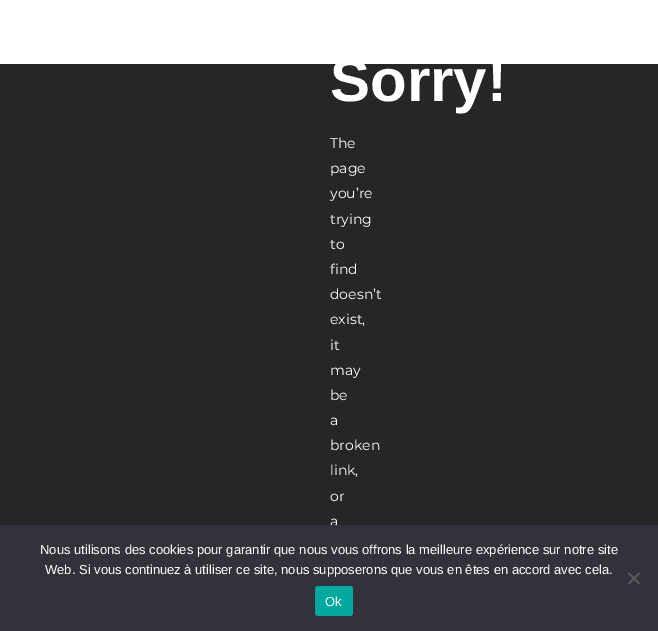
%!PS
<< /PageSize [658 631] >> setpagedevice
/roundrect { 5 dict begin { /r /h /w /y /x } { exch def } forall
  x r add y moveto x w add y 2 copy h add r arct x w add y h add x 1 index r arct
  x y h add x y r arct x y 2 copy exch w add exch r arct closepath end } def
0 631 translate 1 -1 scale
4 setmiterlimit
1 setgray
0 0 658 631 rectfill
0.149 setgray
0 64 658 461 rectfill
gsave
0 64 658 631 rectclip
/LiberationSans-Bold [60 0 0 -60 0 0] selectfont
1 setgray
330 101 moveto (Sorry!) show
grestore
/Montserrat-Regular [14 0 0 -14 0 0] selectfont
1 setgray
330 148 moveto (The) show
330 173 moveto (page) show
330 198 moveto (you’re) show
330 224 moveto (trying) show
330 249 moveto (to) show
330 274 moveto (find) show
330 299 moveto (doesn’t) show
330 324 moveto (exist,) show
330 350 moveto (it) show
330 375 moveto (may) show
330 400 moveto (be) show
330 425 moveto (a) show
330 450 moveto (broken) show
330 475 moveto (link,) show
330 501 moveto (or) show
330 526 moveto (a) show
0.196 0.196 0.227 setrgbcolor
0 525 658 106 rectfill
/LiberationSans-Regular [13 0 0 -13 0 0] selectfont
1 setgray
40 554 moveto (Nous utilisons des cookies pour garantir que nous vous offrons la meilleure expérience sur notre site) show
45 574 moveto (Web. Si vous continuez à utiliser ce site, nous supposerons que vous en êtes en accord avec cela.) show
0.349 0.349 0.365 setrgbcolor
newpath 638.5 572.5 moveto 640 574 lineto 629.5 584.5 lineto 628 583 lineto closepath fill
newpath 628 574 moveto 629.5 572.5 lineto 640 583 lineto 638.5 584.5 lineto closepath fill
0 0.663 0.616 setrgbcolor
315 586 38 30 3 roundrect fill
1 setgray
325 606 moveto (Ok) show
showpage
